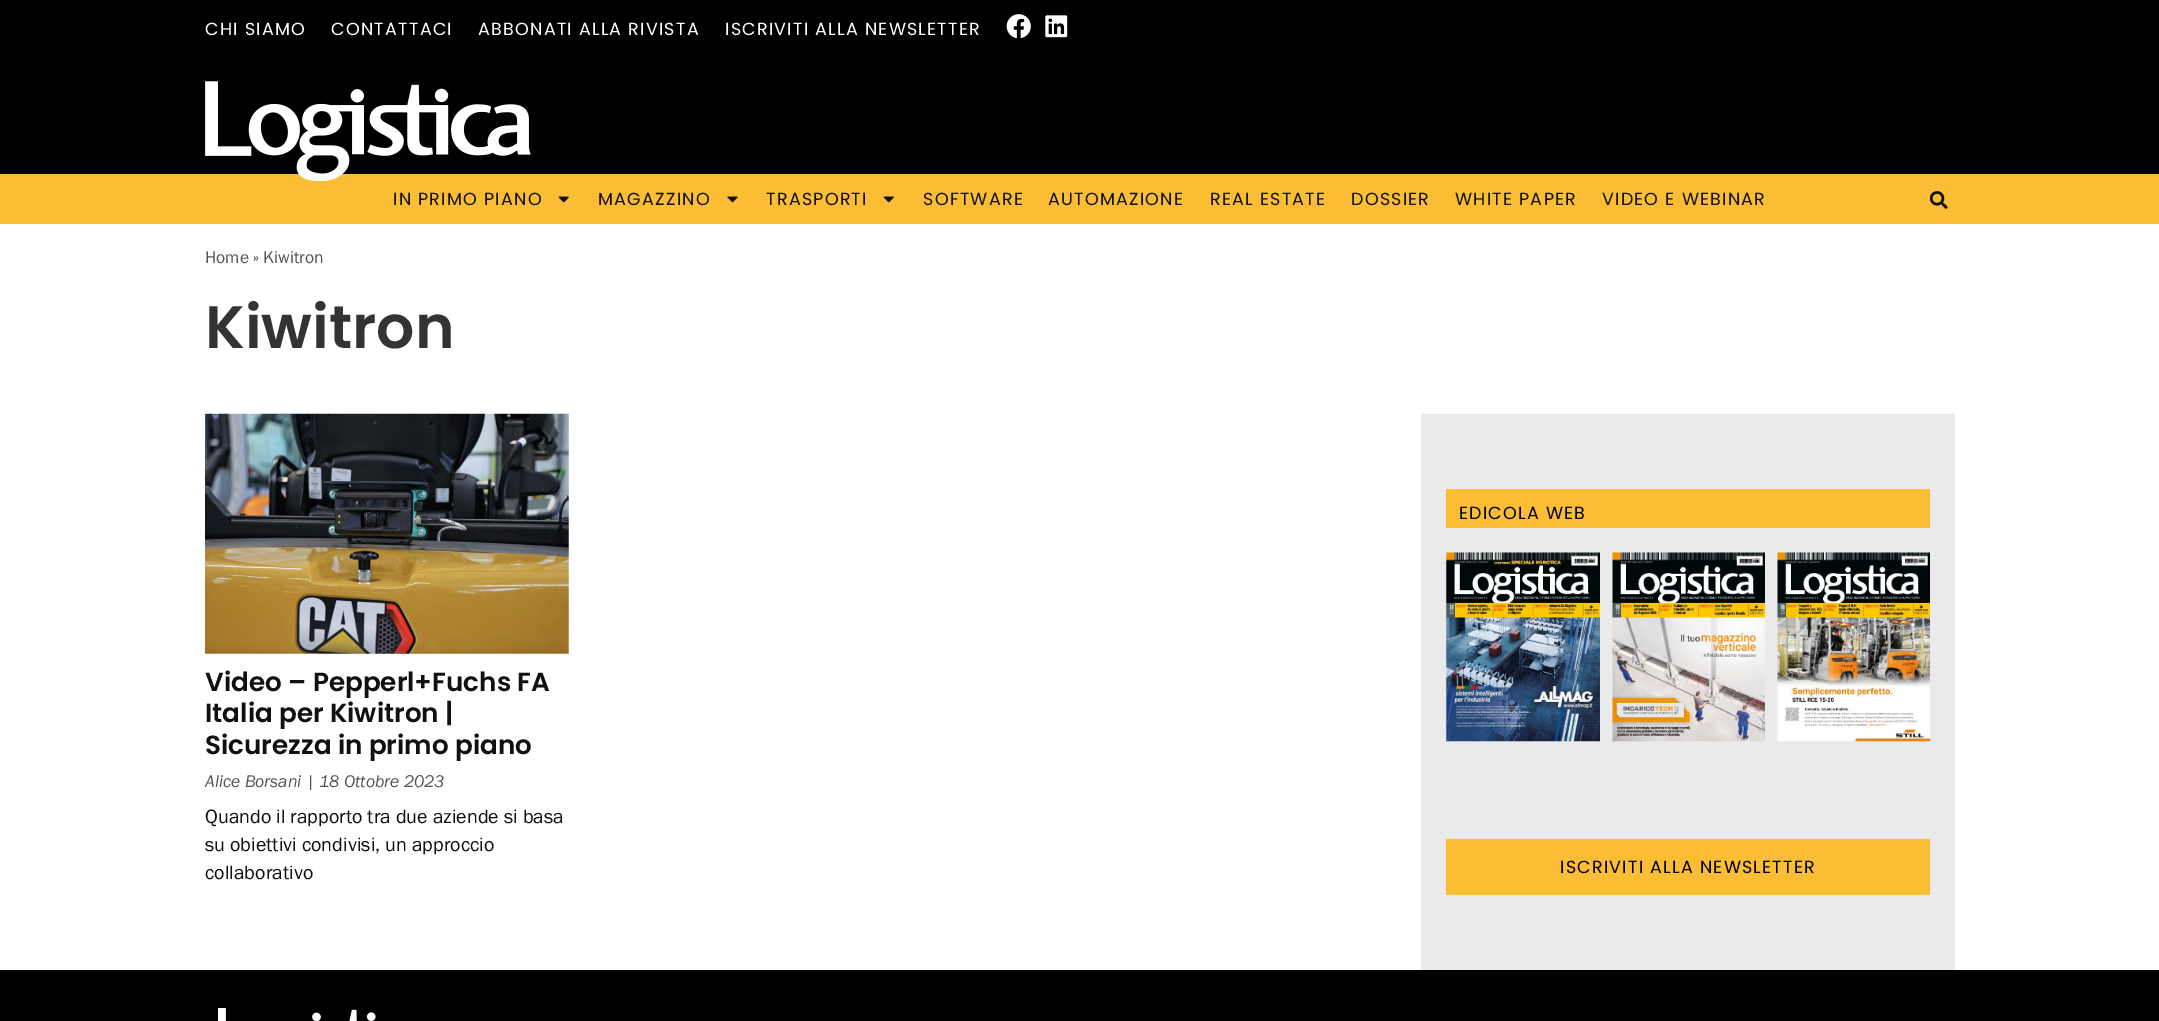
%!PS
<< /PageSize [2159 1021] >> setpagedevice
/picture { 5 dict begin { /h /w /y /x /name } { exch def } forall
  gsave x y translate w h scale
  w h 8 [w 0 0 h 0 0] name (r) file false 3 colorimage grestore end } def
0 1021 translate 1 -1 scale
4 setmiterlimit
1 setgray
0 0 2159 1021 rectfill
0 setgray
0 0 2159 174 rectfill
/Poppins-Regular [17.5 0 0 -17.5 0 0] selectfont
1 setgray
205 35 moveto 1.25 0 (CHI SIAMO) ashow
331 35 moveto 1.25 0 (CONTATTACI) ashow
478 35 moveto 1.25 0 (ABBONATI ALLA RIVISTA) ashow
725 35 moveto 1.25 0 (ISCRIVITI ALLA NEWSLETTER) ashow
(img1.rgb) 1006 14 25 25 picture
(img2.rgb) 1045 15 23 23 picture
0.984 0.741 0.2 setrgbcolor
0 174 2159 50 rectfill
(img3.rgb) 205 81 326 100 picture
0.067 setgray
393 205 moveto 1.25 0 (IN PRIMO PIANO) ashow
(img4.rgb) 558 196 11 7 picture
598 205 moveto 1.25 0 (MAGAZZINO) ashow
(img5.rgb) 727 196 11 7 picture
766 205 moveto 1.25 0 (TRASPORTI) ashow
(img4.rgb) 883 196 11 7 picture
923 205 moveto 1.25 0 (SOFTWARE) ashow
1048 205 moveto 1.25 0 (AUTOMAZIONE) ashow
1210 205 moveto 1.25 0 (REAL ESTATE) ashow
1351 205 moveto 1.25 0 (DOSSIER) ashow
1455 205 moveto 1.25 0 (WHITE PAPER) ashow
1602 205 moveto 1.25 0 (VIDEO E WEBINAR) ashow
(img6.rgb) 1930 191 18 18 picture
/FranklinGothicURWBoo-Regular [17.5 0 0 -17.5 0 0] selectfont
0.333 setgray
205 263 moveto (Home » Kiwitron) show
/Poppins-SemiBold [60 0 0 -60 0 0] selectfont
0.2 setgray
205 348 moveto (Kiwitron) show
(img7.rgb) 205 413 364 241 picture
/Poppins-SemiBold [26.25 0 0 -26.25 0 0] selectfont
0.067 setgray
205 691 moveto (Video – Pepperl+Fuchs FA) show
205 722 moveto (Italia per Kiwitron |) show
205 754 moveto (Sicurezza in primo piano) show
/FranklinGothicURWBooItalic-Italic [17.5 0 0 -17.5 0 0] selectfont
0.333 setgray
205 787 moveto (Alice Borsani | 18 Ottobre 2023) show
/FranklinGothicURWBoo-Regular [20 0 0 -20 0 0] selectfont
0.067 setgray
205 823 moveto (Quando il rapporto tra due aziende si basa) show
205 851 moveto (su obiettivi condivisi, un approccio) show
205 879 moveto (collaborativo) show
0.918 setgray
1421 414 534 556 rectfill
0.984 0.741 0.2 setrgbcolor
1446 489 484 39 rectfill
/Poppins-Regular [17.5 0 0 -17.5 0 0] selectfont
0 setgray
1459 519 moveto 1.25 0 (EDICOLA WEB) ashow
(img8.rgb) 1446 552 154 190 picture
(img9.rgb) 1612 552 153 190 picture
(img10.rgb) 1777 552 153 190 picture
0.984 0.741 0.2 setrgbcolor
1446 839 484 56 rectfill
0 setgray
1560 873 moveto 1.25 0 (ISCRIVITI ALLA NEWSLETTER) ashow
0 970 2159 51 rectfill
(img11.rgb) 218 1008 158 13 picture
showpage
